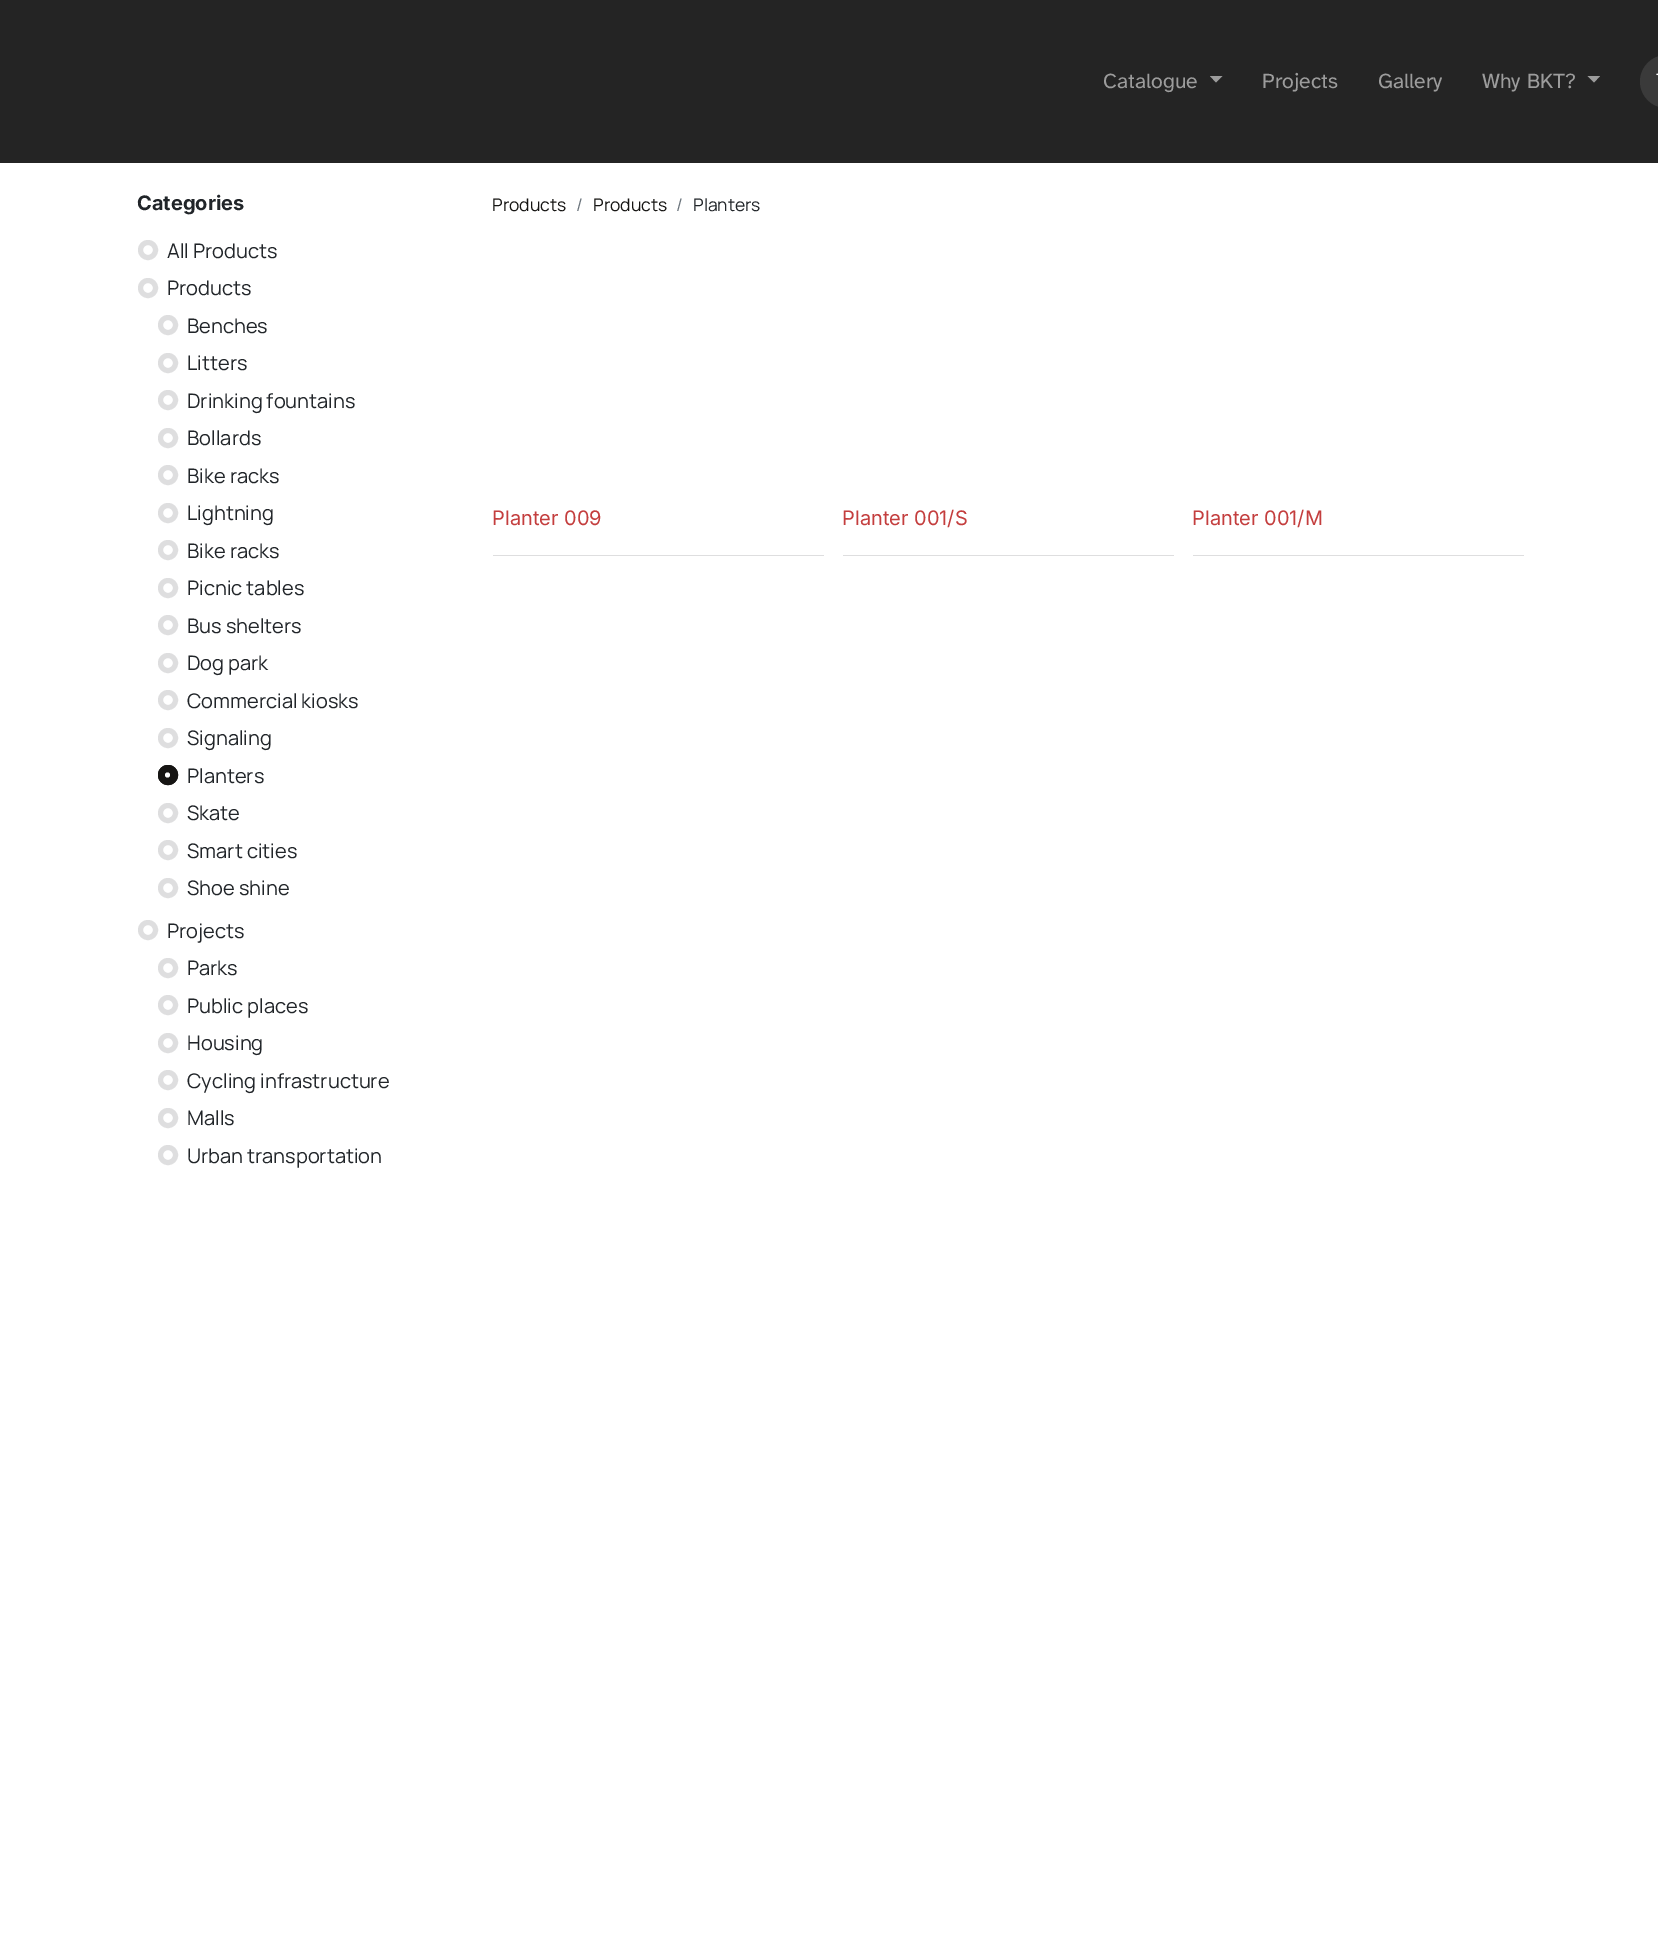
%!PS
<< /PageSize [1658 1942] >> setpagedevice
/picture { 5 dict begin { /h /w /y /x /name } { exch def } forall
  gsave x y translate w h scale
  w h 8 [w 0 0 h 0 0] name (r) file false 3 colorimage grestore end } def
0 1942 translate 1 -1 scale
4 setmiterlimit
1 setgray
0 0 1658 1942 rectfill
0.141 setgray
0 0 1658 163 rectfill
/AtkinsonHyperlegible-Regular [21.25 0 0 -21.25 0 0] selectfont
0.612 setgray
1103 88 moveto (Catalogue) show
newpath 1210 76 moveto 1222.5 76 lineto 1216 82.5 lineto closepath fill
1262 88 moveto (Projects) show
1378 88 moveto (Gallery) show
1482 88 moveto (Why BKT?) show
newpath 1587.5 76 moveto 1600 76 lineto 1594 82.5 lineto closepath fill
0.227 setgray
newpath 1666.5 55 moveto 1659 55 lineto 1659 108 lineto 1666.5 108 lineto 1652 108 1640 96 1640 81.5 curveto 1640 67 1652 55 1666.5 55 curveto closepath fill
(img1.rgb) 1656 73 2 3 picture
/Inter-Bold [20 0 0 -20 0 0] selectfont
0.129 0.145 0.161 setrgbcolor
137 210 moveto (Categories) show
0.871 0.871 0.875 setrgbcolor
5 setlinewidth
newpath 148 250 7.5 0 360 arc closepath stroke
/Manrope-Regular [20 0 0 -20 0 0] selectfont
0.129 0.145 0.161 setrgbcolor
167 258 moveto (All Products) show
0.871 0.871 0.875 setrgbcolor
newpath 148 288 7.5 0 360 arc closepath stroke
0.129 0.145 0.161 setrgbcolor
167 295 moveto (Products) show
0.871 0.871 0.875 setrgbcolor
newpath 168 325 7.5 0 360 arc closepath stroke
0.129 0.145 0.161 setrgbcolor
187 333 moveto (Benches) show
0.871 0.871 0.875 setrgbcolor
newpath 168 363 7.5 0 360 arc closepath stroke
0.129 0.145 0.161 setrgbcolor
187 370 moveto (Litters) show
0.871 0.871 0.875 setrgbcolor
newpath 168 400 7.5 0 360 arc closepath stroke
0.129 0.145 0.161 setrgbcolor
187 408 moveto (Drinking fountains) show
0.871 0.871 0.875 setrgbcolor
newpath 168 438 7.5 0 360 arc closepath stroke
0.129 0.145 0.161 setrgbcolor
187 445 moveto (Bollards) show
0.871 0.871 0.875 setrgbcolor
newpath 168 475 7.5 0 360 arc closepath stroke
0.129 0.145 0.161 setrgbcolor
187 483 moveto (Bike racks) show
0.871 0.871 0.875 setrgbcolor
newpath 168 513 7.5 0 360 arc closepath stroke
0.129 0.145 0.161 setrgbcolor
187 520 moveto (Lightning) show
0.871 0.871 0.875 setrgbcolor
newpath 168 550 7.5 0 360 arc closepath stroke
0.129 0.145 0.161 setrgbcolor
187 558 moveto (Bike racks) show
0.871 0.871 0.875 setrgbcolor
newpath 168 588 7.5 0 360 arc closepath stroke
0.129 0.145 0.161 setrgbcolor
187 595 moveto (Picnic tables) show
0.871 0.871 0.875 setrgbcolor
newpath 168 625 7.5 0 360 arc closepath stroke
0.129 0.145 0.161 setrgbcolor
187 633 moveto (Bus shelters) show
0.871 0.871 0.875 setrgbcolor
newpath 168 663 7.5 0 360 arc closepath stroke
0.129 0.145 0.161 setrgbcolor
187 670 moveto (Dog park) show
0.871 0.871 0.875 setrgbcolor
newpath 168 700 7.5 0 360 arc closepath stroke
0.129 0.145 0.161 setrgbcolor
187 708 moveto (Commercial kiosks) show
0.871 0.871 0.875 setrgbcolor
newpath 168 738 7.5 0 360 arc closepath stroke
0.129 0.145 0.161 setrgbcolor
187 745 moveto (Signaling) show
0.086 0.082 0.075 setrgbcolor
newpath 168 775 10 0 360 arc closepath fill
1 setgray
newpath 167.5 775 2.5 0 360 arc closepath fill
0.086 0.082 0.075 setrgbcolor
newpath 168 775 7.5 0 360 arc closepath stroke
0.129 0.145 0.161 setrgbcolor
187 783 moveto (Planters) show
0.871 0.871 0.875 setrgbcolor
newpath 168 813 7.5 0 360 arc closepath stroke
0.129 0.145 0.161 setrgbcolor
187 820 moveto (Skate) show
0.871 0.871 0.875 setrgbcolor
newpath 168 850 7.5 0 360 arc closepath stroke
0.129 0.145 0.161 setrgbcolor
187 858 moveto (Smart cities) show
0.871 0.871 0.875 setrgbcolor
newpath 168 888 7.5 0 360 arc closepath stroke
0.129 0.145 0.161 setrgbcolor
187 895 moveto (Shoe shine) show
0.871 0.871 0.875 setrgbcolor
newpath 148 930 7.5 0 360 arc closepath stroke
0.129 0.145 0.161 setrgbcolor
167 938 moveto (Projects) show
0.871 0.871 0.875 setrgbcolor
newpath 168 968 7.5 0 360 arc closepath stroke
0.129 0.145 0.161 setrgbcolor
187 975 moveto (Parks) show
0.871 0.871 0.875 setrgbcolor
newpath 168 1005 7.5 0 360 arc closepath stroke
0.129 0.145 0.161 setrgbcolor
187 1013 moveto (Public places) show
0.871 0.871 0.875 setrgbcolor
newpath 168 1043 7.5 0 360 arc closepath stroke
0.129 0.145 0.161 setrgbcolor
187 1050 moveto (Housing) show
0.871 0.871 0.875 setrgbcolor
newpath 168 1080 7.5 0 360 arc closepath stroke
0.129 0.145 0.161 setrgbcolor
187 1088 moveto (Cycling infrastructure) show
0.871 0.871 0.875 setrgbcolor
newpath 168 1118 7.5 0 360 arc closepath stroke
0.129 0.145 0.161 setrgbcolor
187 1125 moveto (Malls) show
0.871 0.871 0.875 setrgbcolor
newpath 168 1155 7.5 0 360 arc closepath stroke
0.129 0.145 0.161 setrgbcolor
187 1163 moveto (Urban transportation) show
/Manrope-Regular [17.5 0 0 -17.5 0 0] selectfont
0.086 0.082 0.075 setrgbcolor
492 211 moveto (Products) show
0.424 0.459 0.49 setrgbcolor
576 211 moveto (/) show
0.086 0.082 0.075 setrgbcolor
593 211 moveto (Products) show
0.424 0.459 0.49 setrgbcolor
676 211 moveto (/) show
0.129 0.145 0.161 setrgbcolor
693 211 moveto (Planters) show
0.871 0.871 0.875 setrgbcolor
493 555 331 1 rectfill
/Inter-Regular [20 0 0 -20 0 0] selectfont
0.769 0.243 0.243 setrgbcolor
492 525 moveto (Planter 009) show
0.871 0.871 0.875 setrgbcolor
843 555 331 1 rectfill
0.769 0.243 0.243 setrgbcolor
842 525 moveto (Planter 001/S) show
0.871 0.871 0.875 setrgbcolor
1193 555 331 1 rectfill
0.769 0.243 0.243 setrgbcolor
1192 525 moveto (Planter 001/M) show
showpage
